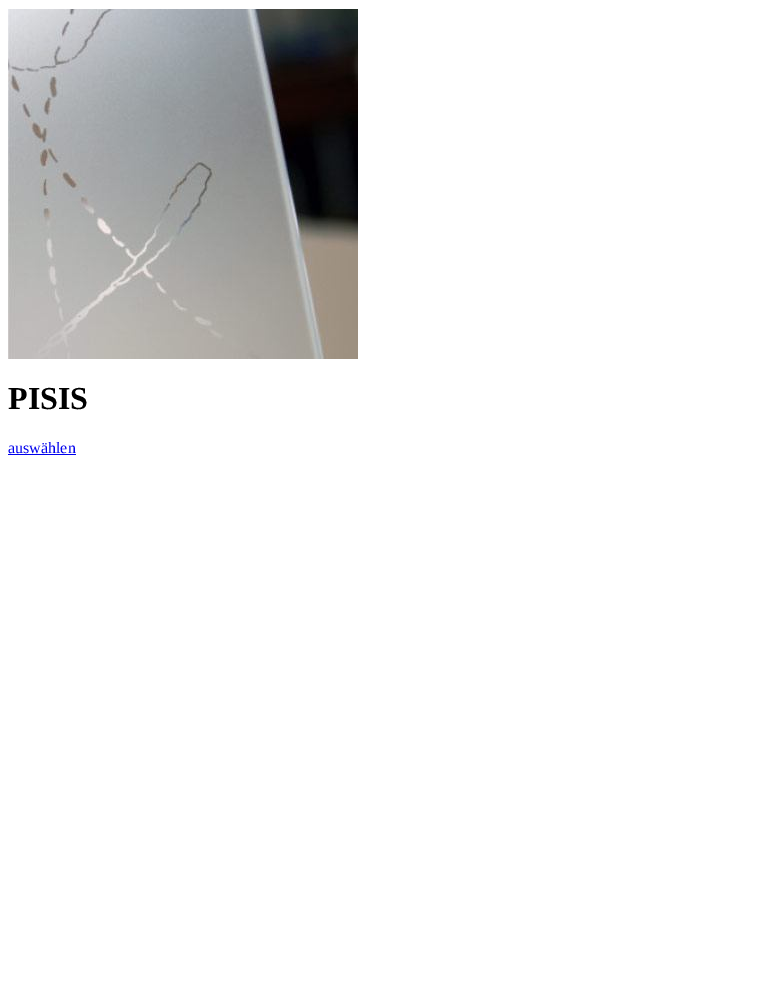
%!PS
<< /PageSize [767 995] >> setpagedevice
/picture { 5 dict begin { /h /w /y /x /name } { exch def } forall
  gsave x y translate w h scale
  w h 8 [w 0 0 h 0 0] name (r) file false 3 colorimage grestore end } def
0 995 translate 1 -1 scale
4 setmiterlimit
1 setgray
0 0 767 995 rectfill
(img1.rgb) 8 9 350 350 picture
/LiberationSerif-Bold [32 0 0 -32 0 0] selectfont
0 setgray
8 409 moveto (PISIS) show
/LiberationSerif-Regular [16 0 0 -16 0 0] selectfont
0 0 0.933 setrgbcolor
8 453 moveto (auswählen) show
8 454 68 1 rectfill
showpage
